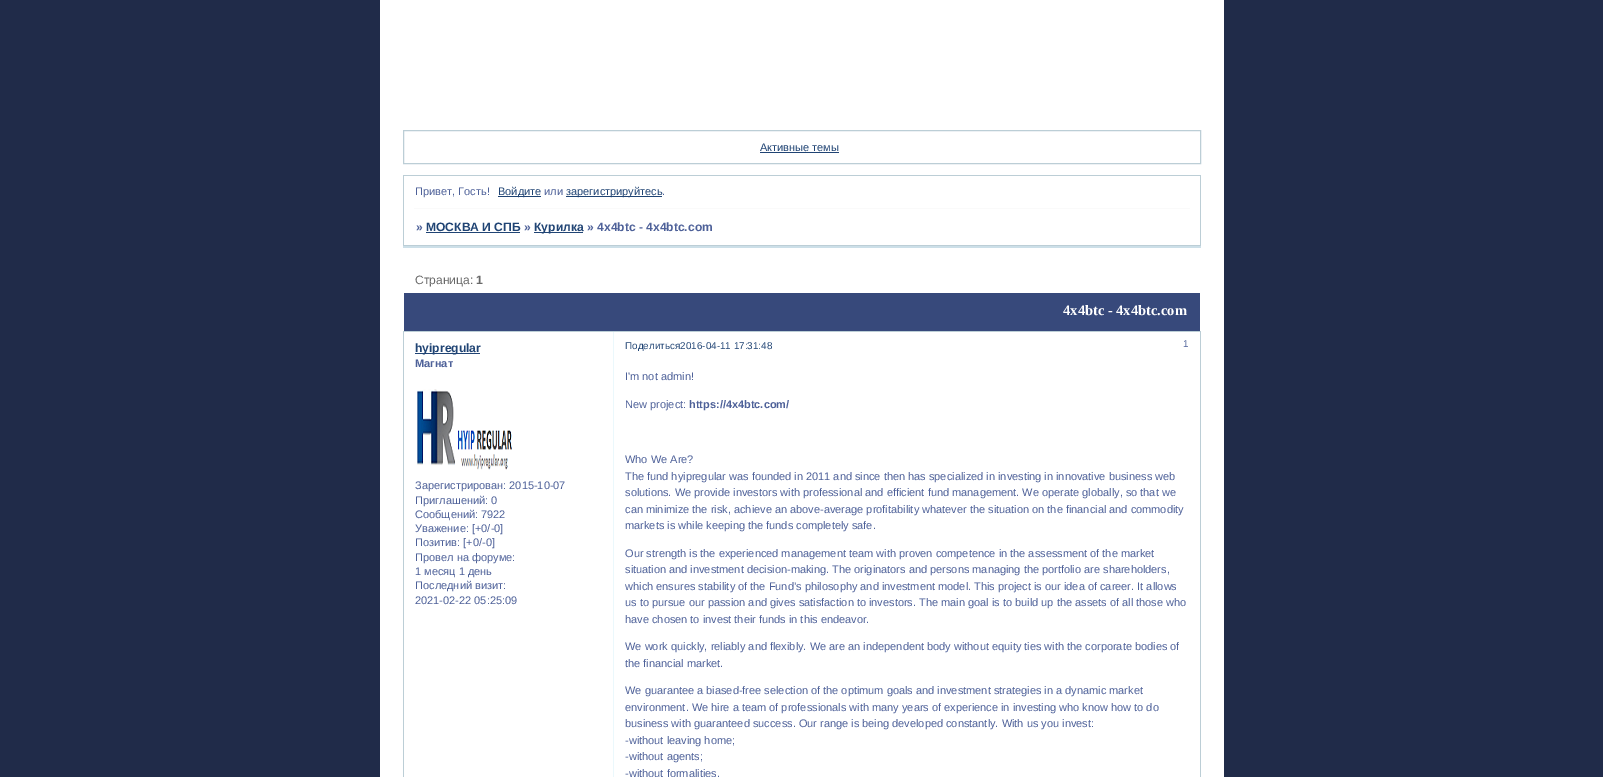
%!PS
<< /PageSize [1603 777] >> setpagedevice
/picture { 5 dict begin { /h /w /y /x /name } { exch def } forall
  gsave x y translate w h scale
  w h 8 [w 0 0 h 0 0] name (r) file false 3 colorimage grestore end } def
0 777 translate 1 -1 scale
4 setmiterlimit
0.125 0.169 0.286 setrgbcolor
0 0 1603 777 rectfill
1 setgray
380 0 844 777 rectfill
0.737 0.808 0.839 setrgbcolor
403.5 130.5 797 33 rectstroke
/LiberationSans-Regular [11 0 0 -11 0 0] selectfont
0.125 0.267 0.455 setrgbcolor
760 151 moveto (Активные темы) show
760 152 79 1 rectfill
0.737 0.808 0.839 setrgbcolor
403 175 798 1 rectfill
1200 175 1 71 rectfill
403 175 1 35 rectfill
0.306 0.38 0.6 setrgbcolor
415 195 moveto (Привет, Гость!) show
0.125 0.267 0.455 setrgbcolor
498 196 43 1 rectfill
498 195 moveto (Войдите) show
0.306 0.38 0.6 setrgbcolor
544 195 moveto (или) show
0.125 0.267 0.455 setrgbcolor
566 196 96 1 rectfill
566 195 moveto (зарегистрируйтесь) show
0.306 0.38 0.6 setrgbcolor
662 195 moveto (.) show
0.98 setgray
414 208 776 1 rectfill
0.8 0.875 0.91 setrgbcolor
403 246 798 2 rectfill
0.737 0.808 0.839 setrgbcolor
403 245 798 1 rectfill
403 208 1 38 rectfill
/LiberationSans-Bold [12.1 0 0 -12.1 0 0] selectfont
0.306 0.38 0.6 setrgbcolor
416 231 moveto (») show
0.125 0.267 0.455 setrgbcolor
426 231 moveto (МОСКВА И СПБ) show
426 232 94 1 rectfill
0.306 0.38 0.6 setrgbcolor
524 231 moveto (») show
0.125 0.267 0.455 setrgbcolor
534 232 49 1 rectfill
534 231 moveto (Курилка) show
0.306 0.38 0.6 setrgbcolor
587 231 moveto (» 4x4btc - 4x4btc.com) show
/LiberationSans-Regular [12.1 0 0 -12.1 0 0] selectfont
0.412 setgray
415 284 moveto (Страница:) show
/LiberationSans-Bold [12.1 0 0 -12.1 0 0] selectfont
476 284 moveto (1) show
0.216 0.286 0.482 setrgbcolor
404 293 796 38 rectfill
/LiberationSerif-Bold [14.5 0 0 -14.5 0 0] selectfont
1 setgray
1063 315 moveto (4x4btc - 4x4btc.com) show
0.737 0.808 0.839 setrgbcolor
403 331 798 1 rectfill
1200 331 1 446 rectfill
403 331 1 446 rectfill
0.922 0.973 0.988 setrgbcolor
613 332 1 26 rectfill
/LiberationSans-Regular [9.9 0 0 -9.9 0 0] selectfont
0.125 0.267 0.455 setrgbcolor
625 349 moveto (Поделиться2016-04-11 17:31:48) show
0.306 0.38 0.6 setrgbcolor
1183 347 moveto (1) show
1 setgray
613 357 1 1 rectfill
0.125 0.267 0.455 setrgbcolor
415 353 65 1 rectfill
/LiberationSans-Bold [12.1 0 0 -12.1 0 0] selectfont
415 352 moveto (hyipregular) show
/LiberationSans-Bold [11 0 0 -11 0 0] selectfont
0.306 0.38 0.6 setrgbcolor
415 367 moveto (Магнат) show
(img1.rgb) 417 389 95 81 picture
/LiberationSans-Regular [11 0 0 -11 0 0] selectfont
415 489 moveto (Зарегистрирован: 2015-10-07) show
415 504 moveto (Приглашений: 0) show
415 518 moveto (Сообщений: 7922) show
415 532 moveto (Уважение: [+0/-0]) show
415 546 moveto (Позитив: [+0/-0]) show
415 561 moveto (Провел на форуме:) show
415 575 moveto (1 месяц 1 день) show
415 589 moveto (Последний визит:) show
415 604 moveto (2021-02-22 05:25:09) show
0.922 0.973 0.988 setrgbcolor
613 357 1 420 rectfill
0.306 0.38 0.6 setrgbcolor
625 380 moveto (I'm not admin!) show
625 408 moveto (New project:) show
/LiberationSans-Bold [11 0 0 -11 0 0] selectfont
689 408 moveto (https://4x4btc.com/) show
/LiberationSans-Regular [11 0 0 -11 0 0] selectfont
625 463 moveto (Who We Are?) show
625 480 moveto (The fund hyipregular was founded in 2011 and since then has specialized in investing in innovative business web) show
625 496 moveto (solutions. We provide investors with professional and efficient fund management. We operate globally, so that we) show
625 513 moveto (can minimize the risk, achieve an above-average profitability whatever the situation on the financial and commodity) show
625 529 moveto (markets is while keeping the funds completely safe.) show
625 557 moveto (Our strength is the experienced management team with proven competence in the assessment of the market) show
625 573 moveto (situation and investment decision-making. The originators and persons managing the portfolio are shareholders,) show
625 590 moveto (which ensures stability of the Fund’s philosophy and investment model. This project is our idea of career. It allows) show
625 606 moveto (us to pursue our passion and gives satisfaction to investors. The main goal is to build up the assets of all those who) show
625 623 moveto (have chosen to invest their funds in this endeavor.) show
625 650 moveto (We work quickly, reliably and flexibly. We are an independent body without equity ties with the corporate bodies of) show
625 667 moveto (the financial market.) show
625 694 moveto (We guarantee a biased-free selection of the optimum goals and investment strategies in a dynamic market) show
625 711 moveto (environment. We hire a team of professionals with many years of experience in investing who know how to do) show
625 727 moveto (business with guaranteed success. Our range is being developed constantly. With us you invest:) show
625 744 moveto (-without leaving home;) show
625 760 moveto (-without agents;) show
625 777 moveto (-without formalities.) show
showpage
